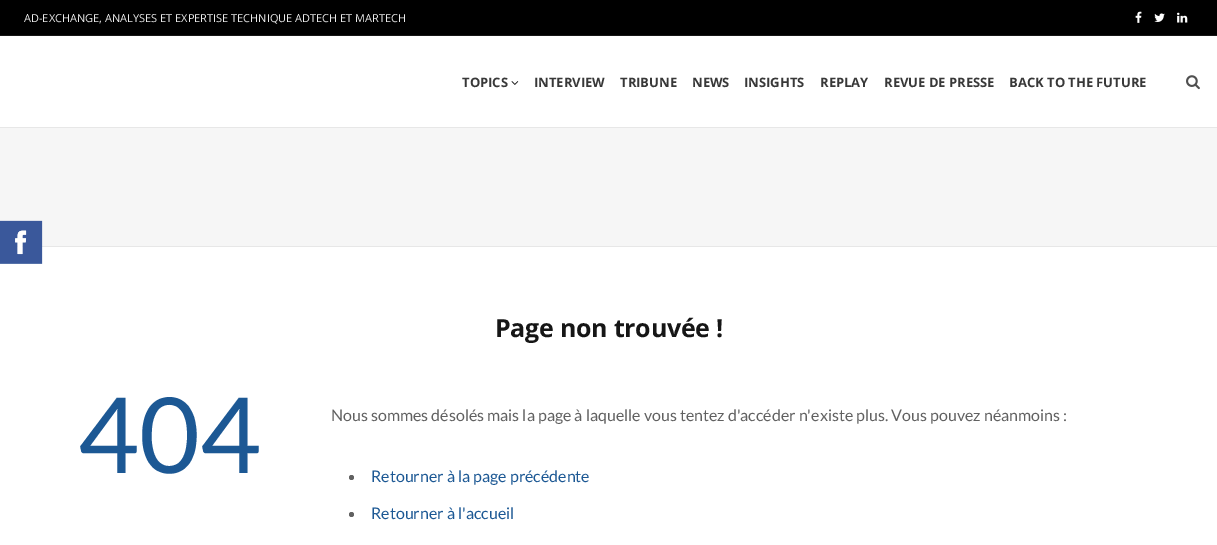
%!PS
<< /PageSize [1217 545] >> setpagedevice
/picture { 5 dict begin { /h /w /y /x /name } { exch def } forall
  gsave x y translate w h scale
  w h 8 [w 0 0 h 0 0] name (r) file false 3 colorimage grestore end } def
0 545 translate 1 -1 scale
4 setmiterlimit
1 setgray
0 0 1217 545 rectfill
0.965 setgray
0 128 1217 118 rectfill
0.906 setgray
17 246 1200 1 rectfill
(img1.rgb) 0 220 43 44 picture
0 127 1217 1 rectfill
0 setgray
0 0 1217 35 rectfill
0.086 setgray
0 35 1217 1 rectfill
/OpenSans-Regular [11 0 0 -11 0 0] selectfont
0.922 setgray
24 22 moveto (AD-EXCHANGE, ANALYSES ET EXPERTISE TECHNIQUE ADTECH ET MARTECH) show
(img2.rgb) 1135 11 7 12 picture
(img3.rgb) 1154 13 11 9 picture
(img4.rgb) 1177 12 11 11 picture
/OpenSans-Bold [13 0 0 -13 0 0] selectfont
0.22 setgray
462 87 moveto (TOPICS) show
(img5.rgb) 511 81 8 4 picture
534 87 moveto (INTERVIEW) show
620 87 moveto (TRIBUNE) show
692 87 moveto (NEWS) show
744 87 moveto (INSIGHTS) show
820 87 moveto (REPLAY) show
884 87 moveto (REVUE DE PRESSE) show
1009 87 moveto (BACK TO THE FUTURE) show
(img6.rgb) 1186 75 14 15 picture
/OpenSans-Bold [25 0 0 -25 0 0] selectfont
0.086 setgray
495 337 moveto -0.25 0 (Page non trouvée !) ashow
/Lato-Regular [105 0 0 -105 0 0] selectfont
0.11 0.345 0.58 setrgbcolor
78 473 moveto (404) show
/Lato-Regular [16 0 0 -16 0 0] selectfont
0.38 setgray
331 421 moveto (Nous sommes désolés mais la page à laquelle vous tentez d'accéder n'existe plus. Vous pouvez néanmoins :) show
newpath 351.5 477.5 2.5 0 360 arc closepath fill
0.11 0.345 0.58 setrgbcolor
371 482 moveto (Retourner à la page précédente) show
0.38 setgray
newpath 351.5 514.5 2.5 0 360 arc closepath fill
0.11 0.345 0.58 setrgbcolor
371 519 moveto (Retourner à l'accueil) show
showpage
